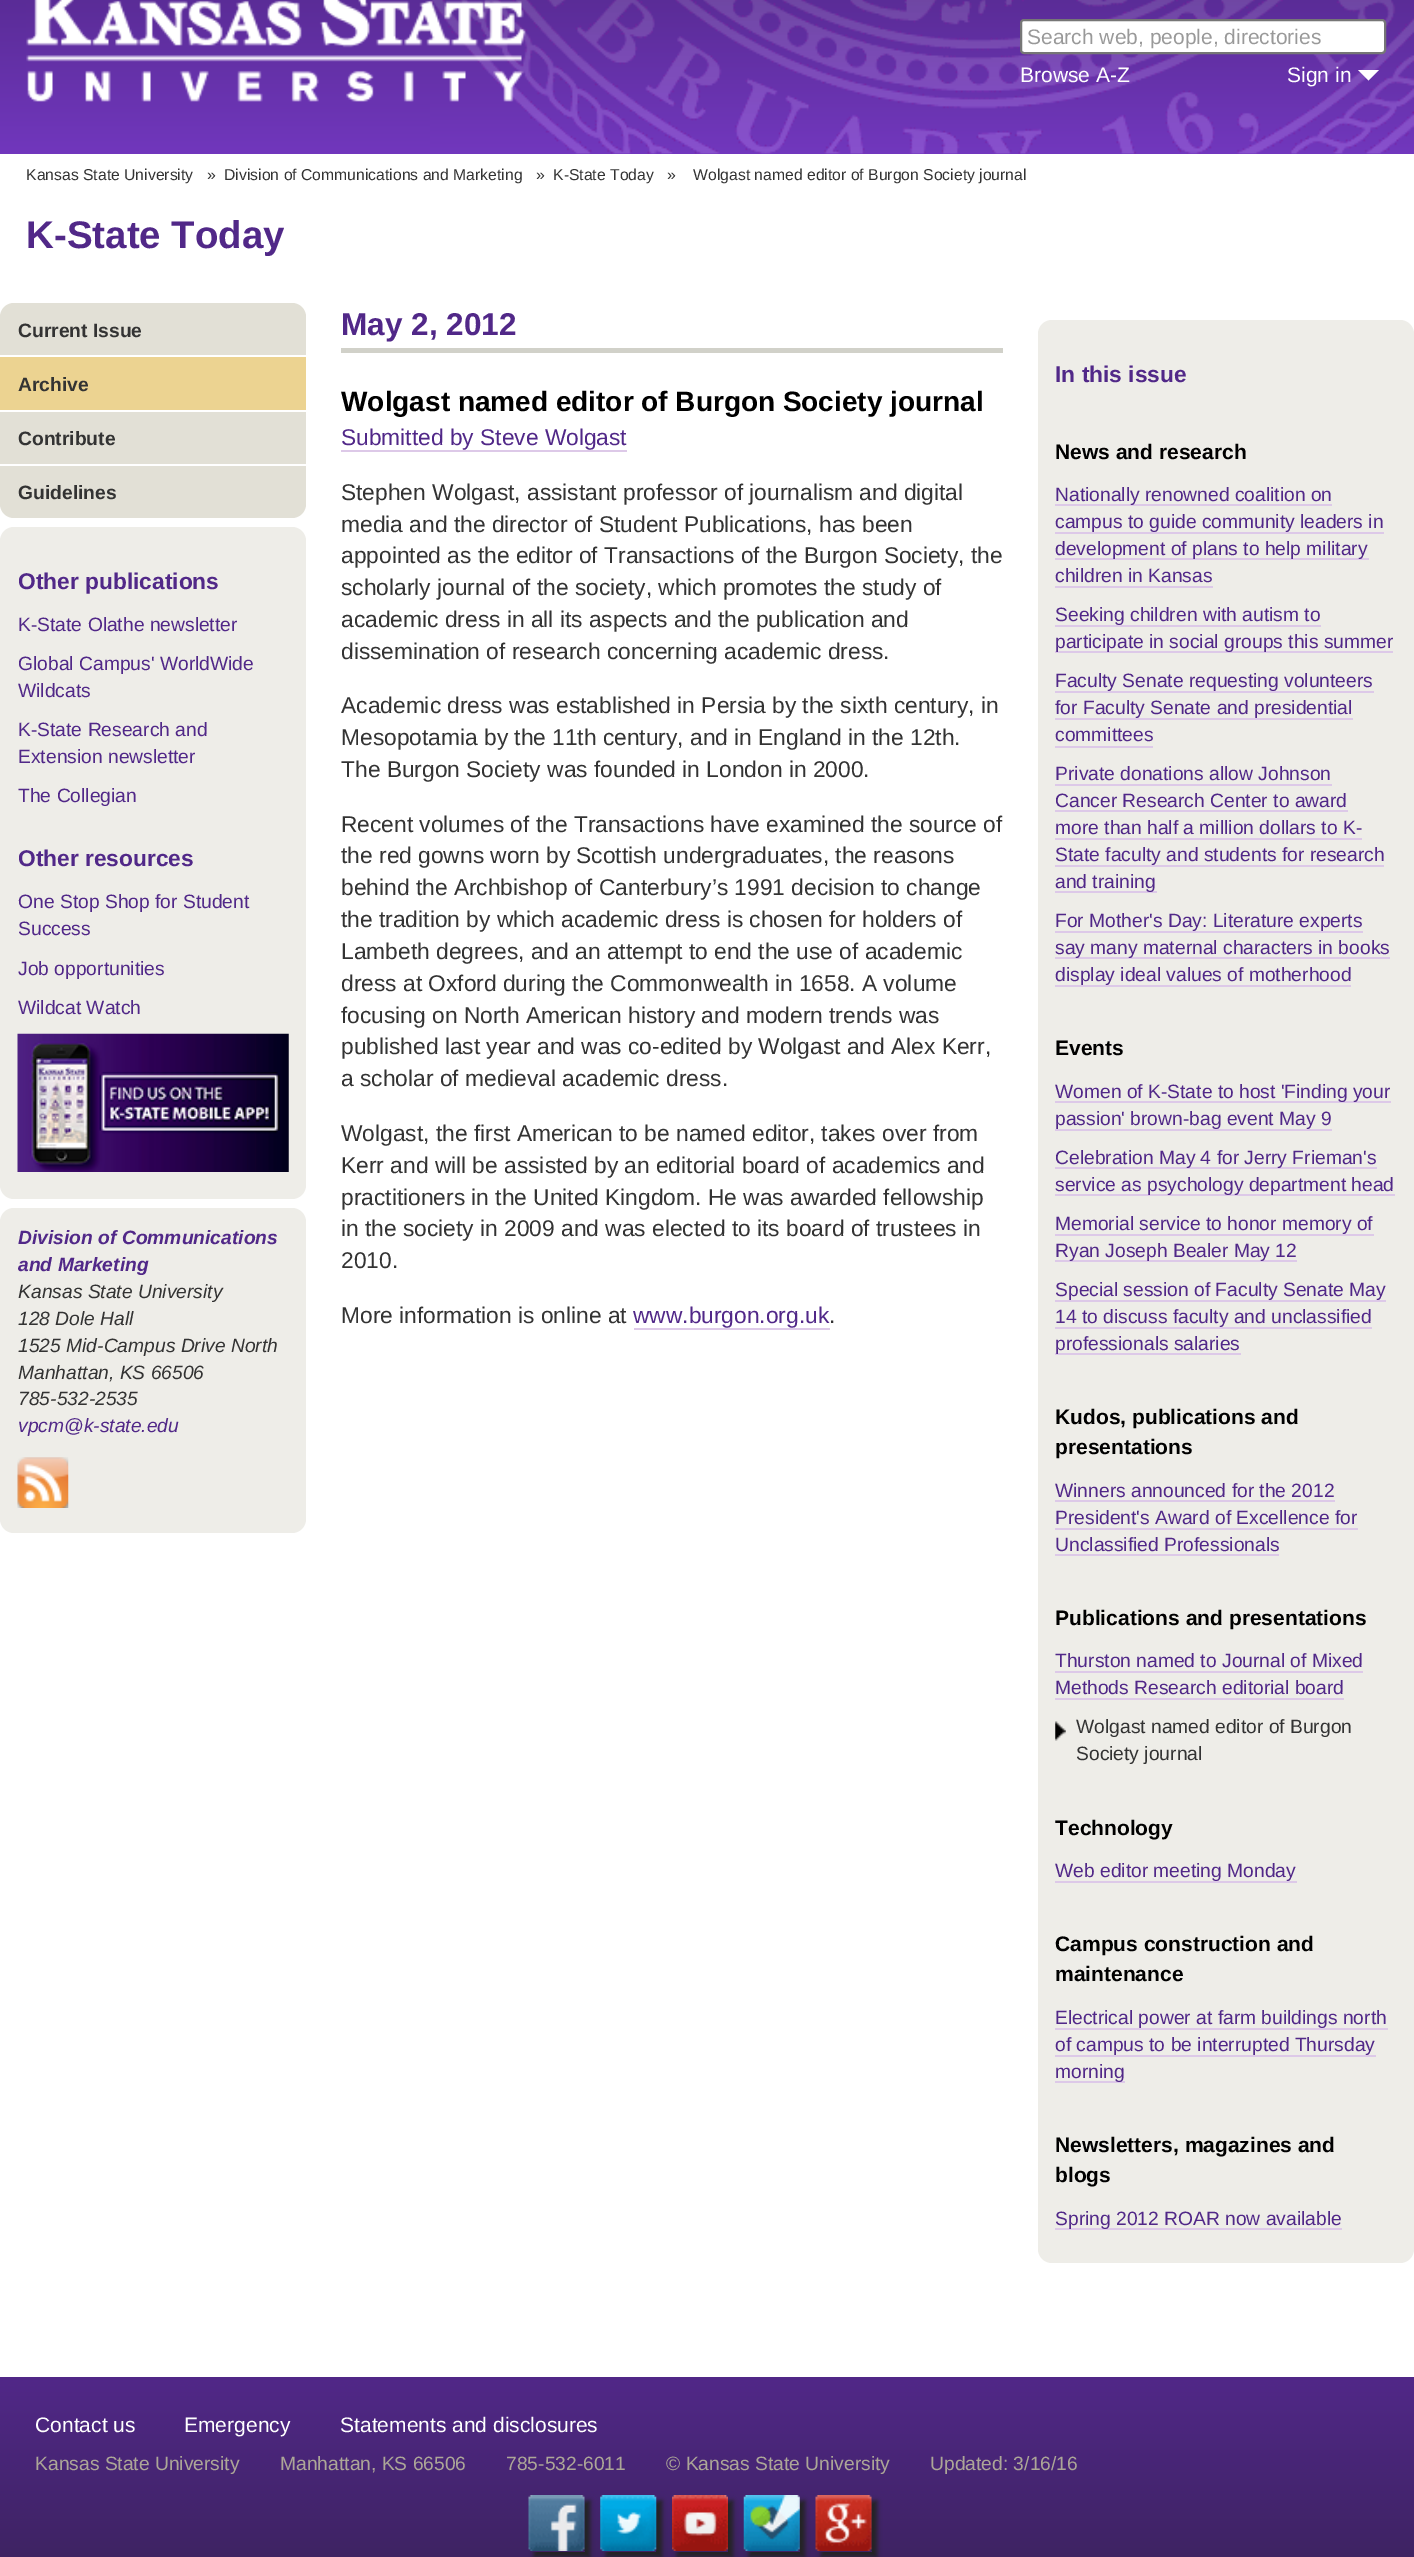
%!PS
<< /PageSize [1414 2557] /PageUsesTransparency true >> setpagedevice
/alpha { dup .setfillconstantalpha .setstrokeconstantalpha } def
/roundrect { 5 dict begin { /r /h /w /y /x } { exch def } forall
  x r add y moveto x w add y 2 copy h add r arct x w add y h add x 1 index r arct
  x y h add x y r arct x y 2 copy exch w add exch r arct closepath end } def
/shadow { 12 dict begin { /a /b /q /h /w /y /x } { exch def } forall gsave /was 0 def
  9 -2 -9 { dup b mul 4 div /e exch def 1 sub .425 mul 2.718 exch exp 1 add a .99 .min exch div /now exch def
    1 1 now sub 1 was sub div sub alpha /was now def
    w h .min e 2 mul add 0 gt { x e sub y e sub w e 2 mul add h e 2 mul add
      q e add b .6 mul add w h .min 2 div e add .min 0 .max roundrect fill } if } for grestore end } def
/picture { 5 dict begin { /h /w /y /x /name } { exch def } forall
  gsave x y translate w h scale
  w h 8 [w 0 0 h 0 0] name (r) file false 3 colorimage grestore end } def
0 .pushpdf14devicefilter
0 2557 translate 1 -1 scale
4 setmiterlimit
1 setgray
0 0 1414 2557 rectfill
gsave newpath 0 0 moveto 1414 0 lineto 1414 154 lineto 0 154 lineto closepath clip newpath
<< /ShadingType 2 /ColorSpace /DeviceRGB /Coords [707 -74 707 154] /Extend [true true] /Function << /FunctionType 2 /Domain [0 1] /C0 [0.31 0.149 0.518] /C1 [0.443 0.216 0.741] /N 1 >> >> shfill grestore
(img1.rgb) 430 0 984 154 picture
(img2.rgb) 26 0 500 102 picture
1021 20 364 33 3 roundrect gsave fill grestore
0.463 setgray
2 setlinewidth
stroke
/LiberationSans-Regular [21 0 0 -21 0 0] selectfont
0.6 setgray
1027 44 moveto (Search web, people, directories) show
1 setgray
1020 82 moveto (Browse A-Z) show
1287 82 moveto (Sign in) show
newpath 1358 70 moveto 1379 70 lineto 1368.5 80.5 lineto closepath fill
/LiberationSans-Regular [15.75 0 0 -15.75 0 0] selectfont
0.2 setgray
26 180 moveto (Kansas State University) show
207 180 moveto (») show
224 180 moveto (Division of Communications and Marketing) show
536 180 moveto (») show
553 180 moveto (K-State Today) show
667 180 moveto (») show
693 180 moveto (Wolgast named editor of Burgon Society journal) show
/LiberationSans-Bold [38.5 0 0 -38.5 0 0] selectfont
0.318 0.157 0.533 setrgbcolor
26 248 moveto (K-State Today) show
0.886 0.878 0.839 setrgbcolor
0 303 306 215 14 roundrect fill
/LiberationSans-Bold [19.25 0 0 -19.25 0 0] selectfont
0.2 setgray
18 337 moveto (Current Issue) show
0.925 0.827 0.569 setrgbcolor
0 357 306 53 rectfill
1 setgray
0 355 306 2 rectfill
0.2 setgray
18 391 moveto (Archive) show
1 setgray
0 410 306 2 rectfill
0.2 setgray
18 445 moveto (Contribute) show
1 setgray
0 464 306 2 rectfill
0.2 setgray
18 499 moveto (Guidelines) show
0.933 0.929 0.91 setrgbcolor
0 527 306 672 14 roundrect fill
/LiberationSans-Bold [22.75 0 0 -22.75 0 0] selectfont
0.318 0.157 0.533 setrgbcolor
18 589 moveto (Other publications) show
/LiberationSans-Regular [19.25 0 0 -19.25 0 0] selectfont
18 631 moveto (K-State Olathe newsletter) show
18 670 moveto (Global Campus' WorldWide) show
18 697 moveto (Wildcats) show
18 736 moveto (K-State Research and) show
18 763 moveto (Extension newsletter) show
18 802 moveto (The Collegian) show
/LiberationSans-Bold [22.75 0 0 -22.75 0 0] selectfont
18 866 moveto (Other resources) show
/LiberationSans-Regular [19.25 0 0 -19.25 0 0] selectfont
18 908 moveto (One Stop Shop for Student) show
18 935 moveto (Success) show
18 975 moveto (Job opportunities) show
18 1014 moveto (Wildcat Watch) show
(img3.rgb) 17 1033 272 139 picture
0.933 0.929 0.91 setrgbcolor
0 1208 306 325 14 roundrect fill
/LiberationSans-BoldItalic [19.25 0 0 -19.25 0 0] selectfont
0.318 0.157 0.533 setrgbcolor
18 1244 moveto (Division of Communications) show
18 1271 moveto (and Marketing) show
/LiberationSans-Italic [19.25 0 0 -19.25 0 0] selectfont
0.2 setgray
18 1298 moveto (Kansas State University) show
18 1325 moveto (128 Dole Hall) show
18 1352 moveto (1525 Mid-Campus Drive North) show
18 1379 moveto (Manhattan, KS 66506) show
18 1405 moveto (785-532-2535) show
0.318 0.157 0.533 setrgbcolor
18 1432 moveto (vpcm@k-state.edu) show
(img4.rgb) 17 1457 52 51 picture
0.82 0.82 0.788 setrgbcolor
341 348 662 5 rectfill
/LiberationSans-Bold [31.5 0 0 -31.5 0 0] selectfont
0.318 0.157 0.533 setrgbcolor
341 335 moveto (May 2, 2012) show
/LiberationSans-Bold [28 0 0 -28 0 0] selectfont
0 setgray
341 411 moveto (Wolgast named editor of Burgon Society journal) show
/LiberationSans-Regular [22.75 0 0 -22.75 0 0] selectfont
0.318 0.157 0.533 setrgbcolor
341 445 moveto (Submitted by Steve Wolgast) show
0.867 0.788 0.91 setrgbcolor
341 450 286 2 rectfill
0.2 setgray
341 500 moveto (Stephen Wolgast, assistant professor of journalism and digital) show
341 532 moveto (media and the director of Student Publications, has been) show
341 563 moveto (appointed as the editor of Transactions of the Burgon Society, the) show
341 595 moveto (scholarly journal of the society, which promotes the study of) show
341 627 moveto (academic dress in all its aspects and the publication and) show
341 659 moveto (dissemination of research concerning academic dress.) show
341 713 moveto (Academic dress was established in Persia by the sixth century, in) show
341 745 moveto (Mesopotamia by the 11th century, and in England in the 12th.) show
341 777 moveto (The Burgon Society was founded in London in 2000.) show
341 832 moveto (Recent volumes of the Transactions have examined the source of) show
341 863 moveto (the red gowns worn by Scottish undergraduates, the reasons) show
341 895 moveto (behind the Archbishop of Canterbury’s 1991 decision to change) show
341 927 moveto (the tradition by which academic dress is chosen for holders of) show
341 959 moveto (Lambeth degrees, and an attempt to end the use of academic) show
341 991 moveto (dress at Oxford during the Commonwealth in 1658. A volume) show
341 1023 moveto (focusing on North American history and modern trends was) show
341 1054 moveto (published last year and was co-edited by Wolgast and Alex Kerr,) show
341 1086 moveto (a scholar of medieval academic dress.) show
341 1141 moveto (Wolgast, the first American to be named editor, takes over from) show
341 1173 moveto (Kerr and will be assisted by an editorial board of academics and) show
341 1205 moveto (practitioners in the United Kingdom. He was awarded fellowship) show
341 1236 moveto (in the society in 2009 and was elected to its board of trustees in) show
341 1268 moveto (2010.) show
341 1323 moveto (More information is online at) show
0.318 0.157 0.533 setrgbcolor
633 1323 moveto (www.burgon.org.uk) show
0.867 0.788 0.91 setrgbcolor
634 1328 196 2 rectfill
0.2 setgray
829 1323 moveto (.) show
0.933 0.929 0.91 setrgbcolor
1038 320 376 1943 14 roundrect fill
/LiberationSans-Bold [22.75 0 0 -22.75 0 0] selectfont
0.318 0.157 0.533 setrgbcolor
1055 382 moveto (In this issue) show
/LiberationSans-Bold [21 0 0 -21 0 0] selectfont
0 setgray
1055 459 moveto (News and research) show
0.867 0.788 0.91 setrgbcolor
1055 504 277 2 rectfill
/LiberationSans-Regular [19.25 0 0 -19.25 0 0] selectfont
0.318 0.157 0.533 setrgbcolor
1055 501 moveto (Nationally renowned coalition on) show
1055 528 moveto (campus to guide community leaders in) show
0.867 0.788 0.91 setrgbcolor
1055 532 329 2 rectfill
1055 558 314 2 rectfill
0.318 0.157 0.533 setrgbcolor
1055 555 moveto (development of plans to help military) show
1055 582 moveto (children in Kansas) show
0.867 0.788 0.91 setrgbcolor
1055 586 158 2 rectfill
0.318 0.157 0.533 setrgbcolor
1055 621 moveto (Seeking children with autism to) show
0.867 0.788 0.91 setrgbcolor
1055 625 266 2 rectfill
1055 651 338 2 rectfill
0.318 0.157 0.533 setrgbcolor
1055 648 moveto (participate in social groups this summer) show
1055 687 moveto (Faculty Senate requesting volunteers) show
0.867 0.788 0.91 setrgbcolor
1055 691 319 2 rectfill
0.318 0.157 0.533 setrgbcolor
1055 714 moveto (for Faculty Senate and presidential) show
0.867 0.788 0.91 setrgbcolor
1055 718 298 2 rectfill
0.318 0.157 0.533 setrgbcolor
1055 741 moveto (committees) show
0.867 0.788 0.91 setrgbcolor
1055 746 98 2 rectfill
0.318 0.157 0.533 setrgbcolor
1055 780 moveto (Private donations allow Johnson) show
0.867 0.788 0.91 setrgbcolor
1055 784 277 2 rectfill
0.318 0.157 0.533 setrgbcolor
1055 807 moveto (Cancer Research Center to award) show
0.867 0.788 0.91 setrgbcolor
1055 810 293 2 rectfill
0.318 0.157 0.533 setrgbcolor
1055 834 moveto (more than half a million dollars to K-) show
0.867 0.788 0.91 setrgbcolor
1055 838 307 2 rectfill
0.318 0.157 0.533 setrgbcolor
1055 861 moveto (State faculty and students for research) show
0.867 0.788 0.91 setrgbcolor
1055 865 329 2 rectfill
1055 891 102 2 rectfill
0.318 0.157 0.533 setrgbcolor
1055 888 moveto (and training) show
1055 927 moveto (For Mother's Day: Literature experts) show
0.867 0.788 0.91 setrgbcolor
1055 931 308 2 rectfill
1055 957 335 2 rectfill
0.318 0.157 0.533 setrgbcolor
1055 954 moveto (say many maternal characters in books) show
1055 981 moveto (display ideal values of motherhood) show
0.867 0.788 0.91 setrgbcolor
1055 985 296 2 rectfill
/LiberationSans-Bold [21 0 0 -21 0 0] selectfont
0 setgray
1055 1055 moveto (Events) show
0.867 0.788 0.91 setrgbcolor
1055 1101 336 2 rectfill
/LiberationSans-Regular [19.25 0 0 -19.25 0 0] selectfont
0.318 0.157 0.533 setrgbcolor
1055 1098 moveto (Women of K-State to host 'Finding your) show
1055 1125 moveto (passion' brown-bag event May 9) show
0.867 0.788 0.91 setrgbcolor
1055 1129 277 2 rectfill
1055 1167 322 2 rectfill
0.318 0.157 0.533 setrgbcolor
1055 1164 moveto (Celebration May 4 for Jerry Frieman's) show
0.867 0.788 0.91 setrgbcolor
1055 1194 340 2 rectfill
0.318 0.157 0.533 setrgbcolor
1055 1191 moveto (service as psychology department head) show
1055 1230 moveto (Memorial service to honor memory of) show
0.867 0.788 0.91 setrgbcolor
1055 1234 319 2 rectfill
1055 1260 242 2 rectfill
0.318 0.157 0.533 setrgbcolor
1055 1257 moveto (Ryan Joseph Bealer May 12) show
1055 1296 moveto (Special session of Faculty Senate May) show
0.867 0.788 0.91 setrgbcolor
1055 1300 331 2 rectfill
0.318 0.157 0.533 setrgbcolor
1055 1323 moveto (14 to discuss faculty and unclassified) show
0.867 0.788 0.91 setrgbcolor
1055 1327 317 2 rectfill
1055 1353 186 2 rectfill
0.318 0.157 0.533 setrgbcolor
1055 1350 moveto (professionals salaries) show
/LiberationSans-Bold [21 0 0 -21 0 0] selectfont
0 setgray
1055 1424 moveto (Kudos, publications and) show
1055 1454 moveto (presentations) show
/LiberationSans-Regular [19.25 0 0 -19.25 0 0] selectfont
0.318 0.157 0.533 setrgbcolor
1055 1497 moveto (Winners announced for the 2012) show
0.867 0.788 0.91 setrgbcolor
1055 1500 280 2 rectfill
0.318 0.157 0.533 setrgbcolor
1055 1524 moveto (President's Award of Excellence for) show
0.867 0.788 0.91 setrgbcolor
1055 1528 303 2 rectfill
0.318 0.157 0.533 setrgbcolor
1055 1551 moveto (Unclassified Professionals) show
0.867 0.788 0.91 setrgbcolor
1055 1554 224 2 rectfill
/LiberationSans-Bold [21 0 0 -21 0 0] selectfont
0 setgray
1055 1625 moveto (Publications and presentations) show
/LiberationSans-Regular [19.25 0 0 -19.25 0 0] selectfont
0.318 0.157 0.533 setrgbcolor
1055 1667 moveto (Thurston named to Journal of Mixed) show
0.867 0.788 0.91 setrgbcolor
1055 1671 308 2 rectfill
0.318 0.157 0.533 setrgbcolor
1055 1694 moveto (Methods Research editorial board) show
0.867 0.788 0.91 setrgbcolor
1055 1698 289 2 rectfill
(img5.rgb) 1055 1721 11 20 picture
0.2 setgray
1076 1733 moveto (Wolgast named editor of Burgon) show
1076 1760 moveto (Society journal) show
/LiberationSans-Bold [21 0 0 -21 0 0] selectfont
0 setgray
1055 1835 moveto (Technology) show
/LiberationSans-Regular [19.25 0 0 -19.25 0 0] selectfont
0.318 0.157 0.533 setrgbcolor
1055 1877 moveto (Web editor meeting Monday) show
0.867 0.788 0.91 setrgbcolor
1055 1881 242 2 rectfill
/LiberationSans-Bold [21 0 0 -21 0 0] selectfont
0 setgray
1055 1951 moveto (Campus construction and) show
1055 1981 moveto (maintenance) show
/LiberationSans-Regular [19.25 0 0 -19.25 0 0] selectfont
0.318 0.157 0.533 setrgbcolor
1055 2024 moveto (Electrical power at farm buildings north) show
0.867 0.788 0.91 setrgbcolor
1055 2028 333 2 rectfill
0.318 0.157 0.533 setrgbcolor
1055 2051 moveto (of campus to be interrupted Thursday) show
0.867 0.788 0.91 setrgbcolor
1055 2055 321 2 rectfill
1055 2081 70 2 rectfill
0.318 0.157 0.533 setrgbcolor
1055 2078 moveto (morning) show
/LiberationSans-Bold [21 0 0 -21 0 0] selectfont
0 setgray
1055 2152 moveto (Newsletters, magazines and) show
1055 2182 moveto (blogs) show
0.867 0.788 0.91 setrgbcolor
1055 2228 287 2 rectfill
/LiberationSans-Regular [19.25 0 0 -19.25 0 0] selectfont
0.318 0.157 0.533 setrgbcolor
1055 2225 moveto (Spring 2012 ROAR now available) show
gsave newpath 0 2377 moveto 1414 2377 lineto 1414 2557 lineto 0 2557 lineto closepath clip newpath
<< /ShadingType 2 /ColorSpace /DeviceRGB /Coords [707 2377 707 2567] /Extend [true true] /Function << /FunctionType 2 /Domain [0 1] /C0 [0.318 0.157 0.533] /C1 [0.239 0.137 0.38] /N 1 >> >> shfill grestore
/LiberationSans-Regular [21 0 0 -21 0 0] selectfont
1 setgray
35 2432 moveto (Contact us) show
184 2432 moveto (Emergency) show
340 2432 moveto (Statements and disclosures) show
/LiberationSans-Regular [19.25 0 0 -19.25 0 0] selectfont
0.675 0.651 0.592 setrgbcolor
35 2470 moveto (Kansas State University) show
280 2470 moveto (Manhattan, KS 66506) show
506 2470 moveto (785-532-6011) show
666 2470 moveto (© Kansas State University) show
930 2470 moveto (Updated: 3/16/16) show
gsave
newpath 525 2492 moveto 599 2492 lineto 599 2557 lineto 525 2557 lineto closepath 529 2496 moveto 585 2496 lineto 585 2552 lineto 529 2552 lineto closepath eoclip newpath
0.133 setgray
534 2501 56 56 0 2.5 1 shadow
grestore
(img6.rgb) 528 2495 57 56 picture
gsave
newpath 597 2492 moveto 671 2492 lineto 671 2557 lineto 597 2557 lineto closepath 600 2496 moveto 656 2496 lineto 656 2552 lineto 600 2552 lineto closepath eoclip newpath
0.133 setgray
606 2501 56 56 0 2.5 1 shadow
grestore
(img7.rgb) 600 2495 57 56 picture
gsave
newpath 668 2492 moveto 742 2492 lineto 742 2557 lineto 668 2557 lineto closepath 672 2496 moveto 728 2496 lineto 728 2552 lineto 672 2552 lineto closepath eoclip newpath
0.133 setgray
677 2501 56 56 0 2.5 1 shadow
grestore
(img8.rgb) 672 2495 56 56 picture
gsave
newpath 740 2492 moveto 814 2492 lineto 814 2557 lineto 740 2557 lineto closepath 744 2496 moveto 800 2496 lineto 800 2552 lineto 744 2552 lineto closepath eoclip newpath
0.133 setgray
749 2501 56 56 0 2.5 1 shadow
grestore
(img9.rgb) 743 2495 57 56 picture
gsave
newpath 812 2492 moveto 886 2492 lineto 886 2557 lineto 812 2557 lineto closepath 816 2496 moveto 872 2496 lineto 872 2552 lineto 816 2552 lineto closepath eoclip newpath
0.133 setgray
821 2501 56 56 0 2.5 1 shadow
grestore
(img10.rgb) 815 2495 57 56 picture
.poppdf14devicefilter showpage
